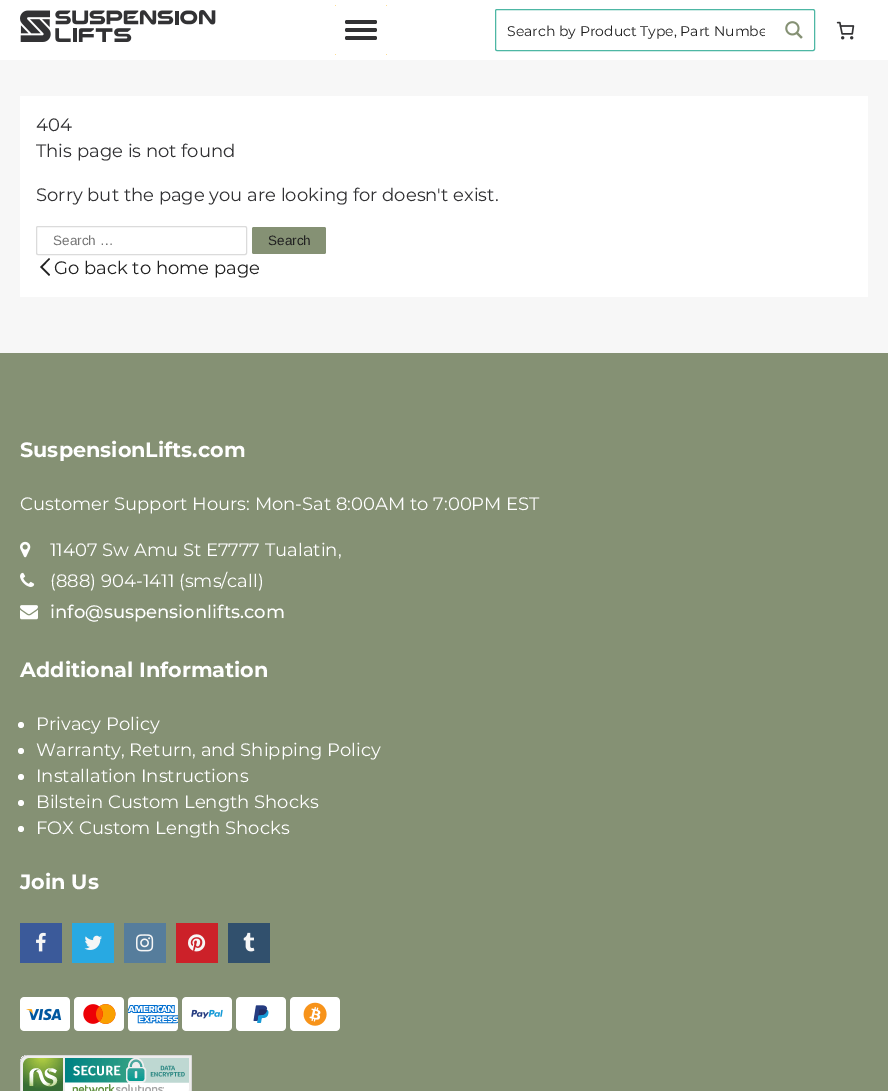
%!PS
<< /PageSize [888 1091] >> setpagedevice
/roundrect { 5 dict begin { /r /h /w /y /x } { exch def } forall
  x r add y moveto x w add y 2 copy h add r arct x w add y h add x 1 index r arct
  x y h add x y r arct x y 2 copy exch w add exch r arct closepath end } def
/picture { 5 dict begin { /h /w /y /x /name } { exch def } forall
  gsave x y translate w h scale
  w h 8 [w 0 0 h 0 0] name (r) file false 3 colorimage grestore end } def
0 1091 translate 1 -1 scale
4 setmiterlimit
0.969 setgray
0 0 888 1091 rectfill
1 setgray
0 0 888 60 rectfill
(img1.rgb) 20 10 196 32 picture
0.992 0.722 0.098 setrgbcolor
335 5 52 50 rectfill
1 setgray
335 5 52 50 2 roundrect fill
0.196 0.196 0.204 setrgbcolor
345 20 32 4 2 roundrect fill
345 28 32 4 2 roundrect fill
345 36 32 4 2 roundrect fill
0.302 0.718 0.643 setrgbcolor
495.5 9.5 319 41 1.5 roundrect stroke
gsave
507 22 258 18 rectclip
/Montserrat-Regular [14 0 0 -14 0 0] selectfont
0.129 setgray
507 36 moveto (Search by Product Type, Part Numbe) show
grestore
(img2.rgb) 785 21 18 18 picture
(img3.rgb) 836 21 19 19 picture
1 setgray
20 96 848 201 rectfill
/Montserrat-Regular [18 0 0 -18 0 0] selectfont
0.196 0.196 0.204 setrgbcolor
36 131 moveto (404) show
36 157 moveto (This page is not found) show
36 201 moveto (Sorry but the page you are looking for doesn't exist.) show
0.859 setgray
36.5 226.5 210 28 1.5 roundrect stroke
/LiberationSans-Regular [13.5 0 0 -13.5 0 0] selectfont
0.459 setgray
53 245 moveto (Search …) show
0.522 0.569 0.455 setrgbcolor
252 227 74 27 2 roundrect fill
0.129 setgray
268 245 moveto (Search) show
newpath 49 258 moveto 40 267 lineto 49 276 lineto 50 274.5 lineto 42.5 267 lineto 50 259 lineto closepath fill
/Montserrat-Regular [18 0 0 -18 0 0] selectfont
54 274 moveto (Go back to home page) show
0.522 0.569 0.455 setrgbcolor
0 353 888 738 rectfill
/Montserrat-Bold [20.75 0 0 -20.75 0 0] selectfont
1 setgray
20 457 moveto (SuspensionLifts.com) show
/Montserrat-Regular [18 0 0 -18 0 0] selectfont
20 510 moveto (Customer Support Hours: Mon-Sat 8:00AM to 7:00PM EST) show
(img4.rgb) 20 541 11 17 picture
50 556 moveto (11407 Sw Amu St E7777 Tualatin,) show
(img5.rgb) 20 572 15 15 picture
50 587 moveto (\(888\) 904-1411 \(sms/call\)) show
(img6.rgb) 20 605 18 15 picture
/Montserrat-Medium [18 0 0 -18 0 0] selectfont
50 618 moveto (info@suspensionlifts.com) show
/Montserrat-Bold [20.75 0 0 -20.75 0 0] selectfont
20 677 moveto (Additional Information) show
newpath 21 725 3 0 360 arc closepath fill
/Montserrat-Regular [18 0 0 -18 0 0] selectfont
36 730 moveto (Privacy Policy) show
newpath 21 751 3 0 360 arc closepath fill
36 756 moveto (Warranty, Return, and Shipping Policy) show
newpath 21 777 3 0 360 arc closepath fill
36 782 moveto (Installation Instructions) show
newpath 21 803 3 0 360 arc closepath fill
36 808 moveto (Bilstein Custom Length Shocks) show
newpath 21 829 3 0 360 arc closepath fill
36 834 moveto (FOX Custom Length Shocks) show
/Montserrat-Bold [20.75 0 0 -20.75 0 0] selectfont
20 889 moveto (Join Us) show
0.231 0.353 0.604 setrgbcolor
20 923 42 40 rectfill
(img7.rgb) 36 932 10 20 picture
0.157 0.663 0.886 setrgbcolor
72 923 42 40 rectfill
(img8.rgb) 84 935 18 15 picture
0.337 0.49 0.612 setrgbcolor
124 923 42 40 rectfill
(img9.rgb) 136 934 18 18 picture
0.8 0.129 0.161 setrgbcolor
176 923 42 40 rectfill
(img10.rgb) 188 934 18 18 picture
0.192 0.314 0.427 setrgbcolor
228 923 42 40 rectfill
(img11.rgb) 243 932 12 20 picture
(img12.rgb) 20 997 50 34 picture
(img13.rgb) 74 997 50 34 picture
(img14.rgb) 128 997 50 35 picture
(img15.rgb) 182 997 50 34 picture
(img16.rgb) 236 997 50 34 picture
(img17.rgb) 290 997 50 34 picture
(img18.rgb) 20 1055 172 36 picture
showpage
